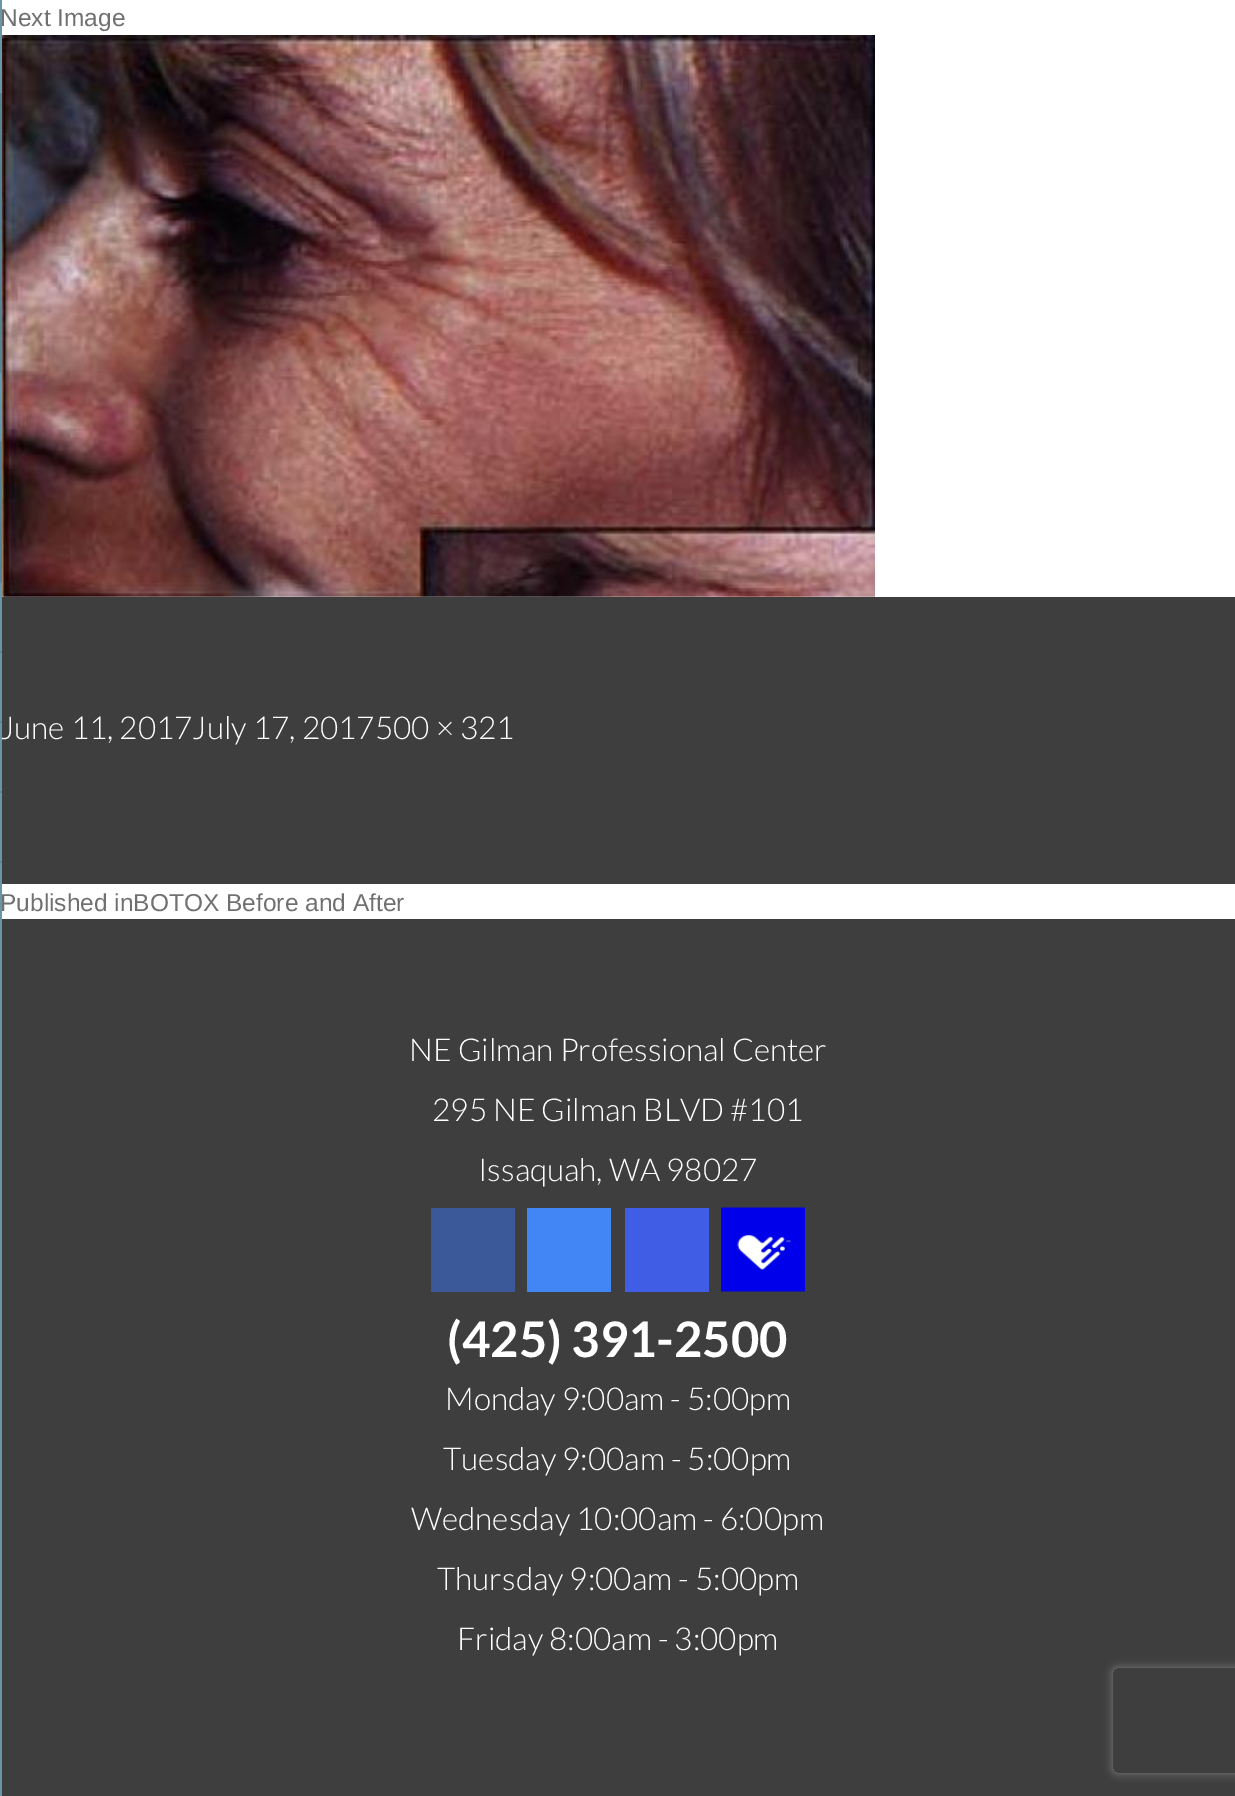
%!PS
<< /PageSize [1235 1796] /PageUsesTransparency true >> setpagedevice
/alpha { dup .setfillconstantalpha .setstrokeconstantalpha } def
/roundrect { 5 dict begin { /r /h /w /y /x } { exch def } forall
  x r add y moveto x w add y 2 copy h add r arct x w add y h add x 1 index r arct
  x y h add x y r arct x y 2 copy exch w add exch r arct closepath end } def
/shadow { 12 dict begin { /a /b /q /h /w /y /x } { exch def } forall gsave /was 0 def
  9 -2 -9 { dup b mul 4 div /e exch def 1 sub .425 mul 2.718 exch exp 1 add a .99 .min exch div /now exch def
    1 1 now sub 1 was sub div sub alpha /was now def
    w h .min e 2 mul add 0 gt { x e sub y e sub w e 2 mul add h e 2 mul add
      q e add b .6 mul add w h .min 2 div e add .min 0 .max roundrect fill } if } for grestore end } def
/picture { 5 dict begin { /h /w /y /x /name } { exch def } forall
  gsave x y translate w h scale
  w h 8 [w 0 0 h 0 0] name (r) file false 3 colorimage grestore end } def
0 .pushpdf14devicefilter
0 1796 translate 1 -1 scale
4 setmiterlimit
1 setgray
0 0 1235 1796 rectfill
0.243 setgray
2 597 1233 287 rectfill
/Lato-Light [31.5 0 0 -31.5 0 0] selectfont
1 setgray
0 739 moveto (June 11, 2017July 17, 2017500 × 321) show
0.404 0.592 0.655 setrgbcolor
0 0 2 1796 rectfill
0.357 0.525 0.584 setrgbcolor
0 161 2 2 rectfill
0.337 0.51 0.569 setrgbcolor
0 93 2 68 rectfill
0.357 0.525 0.584 setrgbcolor
0 231 2 2 rectfill
0.337 0.51 0.569 setrgbcolor
0 163 2 68 rectfill
0.357 0.525 0.584 setrgbcolor
0 301 2 2 rectfill
0.337 0.51 0.569 setrgbcolor
0 233 2 68 rectfill
0.357 0.525 0.584 setrgbcolor
0 371 2 2 rectfill
0.337 0.51 0.569 setrgbcolor
0 303 2 68 rectfill
0.357 0.525 0.584 setrgbcolor
0 441 2 2 rectfill
0 511 2 2 rectfill
0.337 0.51 0.569 setrgbcolor
0 443 2 68 rectfill
0.357 0.525 0.584 setrgbcolor
0 581 2 2 rectfill
0.337 0.51 0.569 setrgbcolor
0 513 2 68 rectfill
0.357 0.525 0.584 setrgbcolor
0 651 2 2 rectfill
0 721 2 2 rectfill
0 791 2 2 rectfill
0 861 2 2 rectfill
/LiberationSans-Regular [24.5 0 0 -24.5 0 0] selectfont
0.439 setgray
0 26 moveto (Next Image) show
(img1.rgb) 2 35 873 562 picture
0 911 moveto (Published inBOTOX Before and After) show
0.243 setgray
2 919 1233 877 rectfill
/Lato-Light [31.5 0 0 -31.5 0 0] selectfont
1 setgray
409 1061 moveto (NE Gilman Professional Center) show
432 1121 moveto (295 NE Gilman BLVD #101) show
478 1181 moveto (Issaquah, WA 98027) show
0.231 0.349 0.596 setrgbcolor
431 1208 84 84 rectfill
0.259 0.522 0.957 setrgbcolor
527 1208 84 84 rectfill
0.251 0.365 0.902 setrgbcolor
625 1208 84 84 rectfill
(img2.rgb) 721 1207 84 85 picture
/Lato-Bold [49 0 0 -49 0 0] selectfont
1 setgray
447 1357 moveto (\(425\) 391-2500) show
/Lato-Light [31.5 0 0 -31.5 0 0] selectfont
445 1410 moveto (Monday 9:00am - 5:00pm) show
443 1470 moveto (Tuesday 9:00am - 5:00pm) show
411 1530 moveto (Wednesday 10:00am - 6:00pm) show
437 1590 moveto (Thursday 9:00am - 5:00pm) show
457 1650 moveto (Friday 8:00am - 3:00pm) show
gsave
newpath 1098 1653 moveto 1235 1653 lineto 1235 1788 lineto 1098 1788 lineto closepath 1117 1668 moveto 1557 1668 lineto 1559 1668 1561 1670 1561 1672 curveto 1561 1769 lineto 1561 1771 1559 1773 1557 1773 curveto 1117 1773 lineto 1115 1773 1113 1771 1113 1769 curveto 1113 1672 lineto 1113 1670 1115 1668 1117 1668 curveto closepath eoclip newpath
0.502 setgray
1113 1668 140 105 4 4.5 1 shadow
grestore
.poppdf14devicefilter showpage
